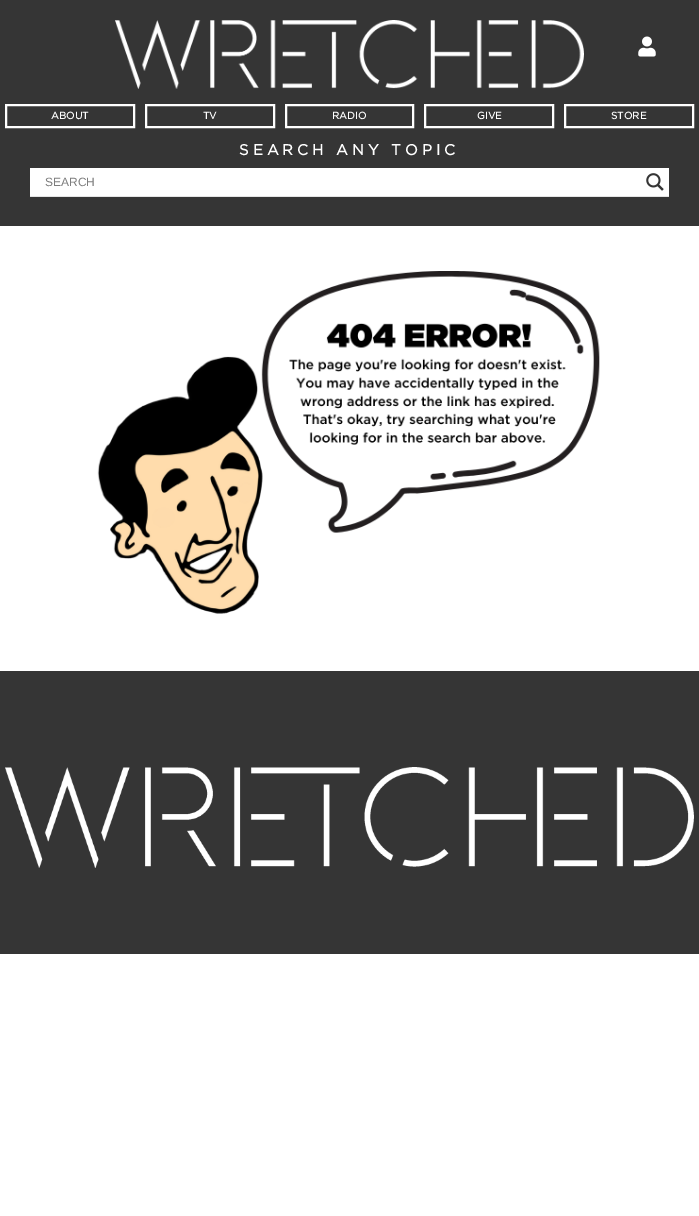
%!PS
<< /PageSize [699 1216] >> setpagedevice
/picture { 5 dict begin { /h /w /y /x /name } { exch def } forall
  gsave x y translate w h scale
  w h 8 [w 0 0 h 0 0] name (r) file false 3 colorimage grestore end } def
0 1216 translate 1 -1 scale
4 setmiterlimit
1 setgray
0 0 699 1216 rectfill
0.208 setgray
0 0 699 226 rectfill
(img1.rgb) 115 20 469 69 picture
(img2.rgb) 638 36 18 21 picture
1 setgray
2 setlinewidth
6 105 128 22 rectstroke
/Gotham-Bold [10 0 0 -10 0 0] selectfont
51 119 moveto (ABOUT) show
146 105 128 22 rectstroke
203 119 moveto (TV) show
286 105 127 22 rectstroke
332 119 moveto (RADIO) show
425 105 128 22 rectstroke
477 119 moveto (GIVE) show
565 105 128 22 rectstroke
611 119 moveto (STORE) show
/Gotham-Bold [15 0 0 -15 0 0] selectfont
239 155 moveto 4 0 (SEARCH ANY TOPIC) ashow
0.894 setgray
30 196 639 1 rectfill
1 setgray
30 168 639 28 rectfill
/LiberationSans-Regular [12 0 0 -12 0 0] selectfont
0.49 setgray
45 186 moveto (SEARCH) show
(img3.rgb) 646 173 18 18 picture
(img4.rgb) 97 271 503 343 picture
0.208 setgray
0 671 699 283 rectfill
(img5.rgb) 5 767 689 101 picture
showpage
